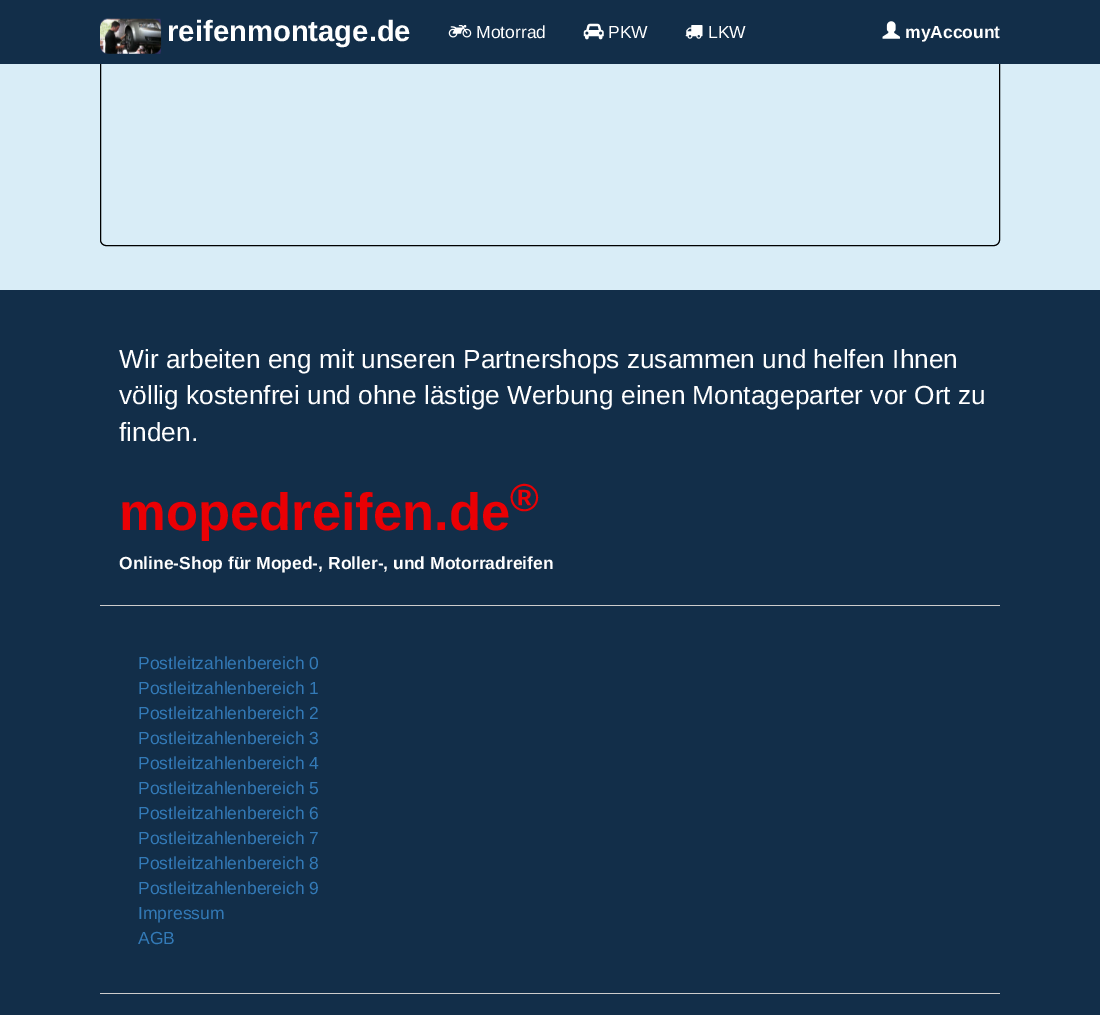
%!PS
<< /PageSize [1100 1015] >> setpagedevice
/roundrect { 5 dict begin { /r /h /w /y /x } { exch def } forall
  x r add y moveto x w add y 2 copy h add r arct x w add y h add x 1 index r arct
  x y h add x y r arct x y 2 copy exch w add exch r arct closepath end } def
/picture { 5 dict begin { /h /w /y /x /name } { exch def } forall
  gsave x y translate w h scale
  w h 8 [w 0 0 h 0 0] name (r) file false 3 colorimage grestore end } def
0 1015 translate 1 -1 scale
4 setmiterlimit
0.851 0.929 0.969 setrgbcolor
0 0 1100 1015 rectfill
0 setgray
100.5 -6.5 899 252 5.5 roundrect stroke
0.071 0.18 0.286 setrgbcolor
0 0 1100 64 rectfill
(img1.rgb) 100 18 62 36 picture
/LiberationSans-Bold [29.25 0 0 -29.25 0 0] selectfont
1 setgray
167 41 moveto (reifenmontage.de) show
(img2.rgb) 448 25 24 13 picture
/LiberationSans-Regular [17.5 0 0 -17.5 0 0] selectfont
476 38 moveto (Motorrad) show
(img3.rgb) 583 23 21 17 picture
608 38 moveto (PKW) show
(img4.rgb) 685 25 18 14 picture
708 38 moveto (LKW) show
(img5.rgb) 882 21 18 18 picture
/LiberationSans-Bold [17.5 0 0 -17.5 0 0] selectfont
905 38 moveto (myAccount) show
0.071 0.18 0.286 setrgbcolor
0 290 1100 725 rectfill
/LiberationSans-Regular [26.25 0 0 -26.25 0 0] selectfont
1 setgray
119 368 moveto (Wir arbeiten eng mit unseren Partnershops zusammen und helfen Ihnen) show
119 404 moveto (völlig kostenfrei und ohne lästige Werbung einen Montageparter vor Ort zu) show
119 441 moveto (finden.) show
/LiberationSans-Bold [52.5 0 0 -52.5 0 0] selectfont
0.914 0 0.016 setrgbcolor
119 530 moveto (mopedreifen.de) show
/LiberationSans-Bold [39 0 0 -39 0 0] selectfont
510 511 moveto (®) show
/LiberationSans-Bold [17.5 0 0 -17.5 0 0] selectfont
1 setgray
119 569 moveto (Online-Shop für Moped-, Roller-, und Motorradreifen) show
0.8 setgray
100 605 900 1 rectfill
/LiberationSans-Regular [17.5 0 0 -17.5 0 0] selectfont
0.2 0.478 0.718 setrgbcolor
138 669 moveto (Postleitzahlenbereich 0) show
138 694 moveto (Postleitzahlenbereich 1) show
138 719 moveto (Postleitzahlenbereich 2) show
138 744 moveto (Postleitzahlenbereich 3) show
138 769 moveto (Postleitzahlenbereich 4) show
138 794 moveto (Postleitzahlenbereich 5) show
138 819 moveto (Postleitzahlenbereich 6) show
138 844 moveto (Postleitzahlenbereich 7) show
138 869 moveto (Postleitzahlenbereich 8) show
138 894 moveto (Postleitzahlenbereich 9) show
138 919 moveto (Impressum) show
138 944 moveto (AGB) show
0.8 setgray
100 993 900 1 rectfill
showpage
